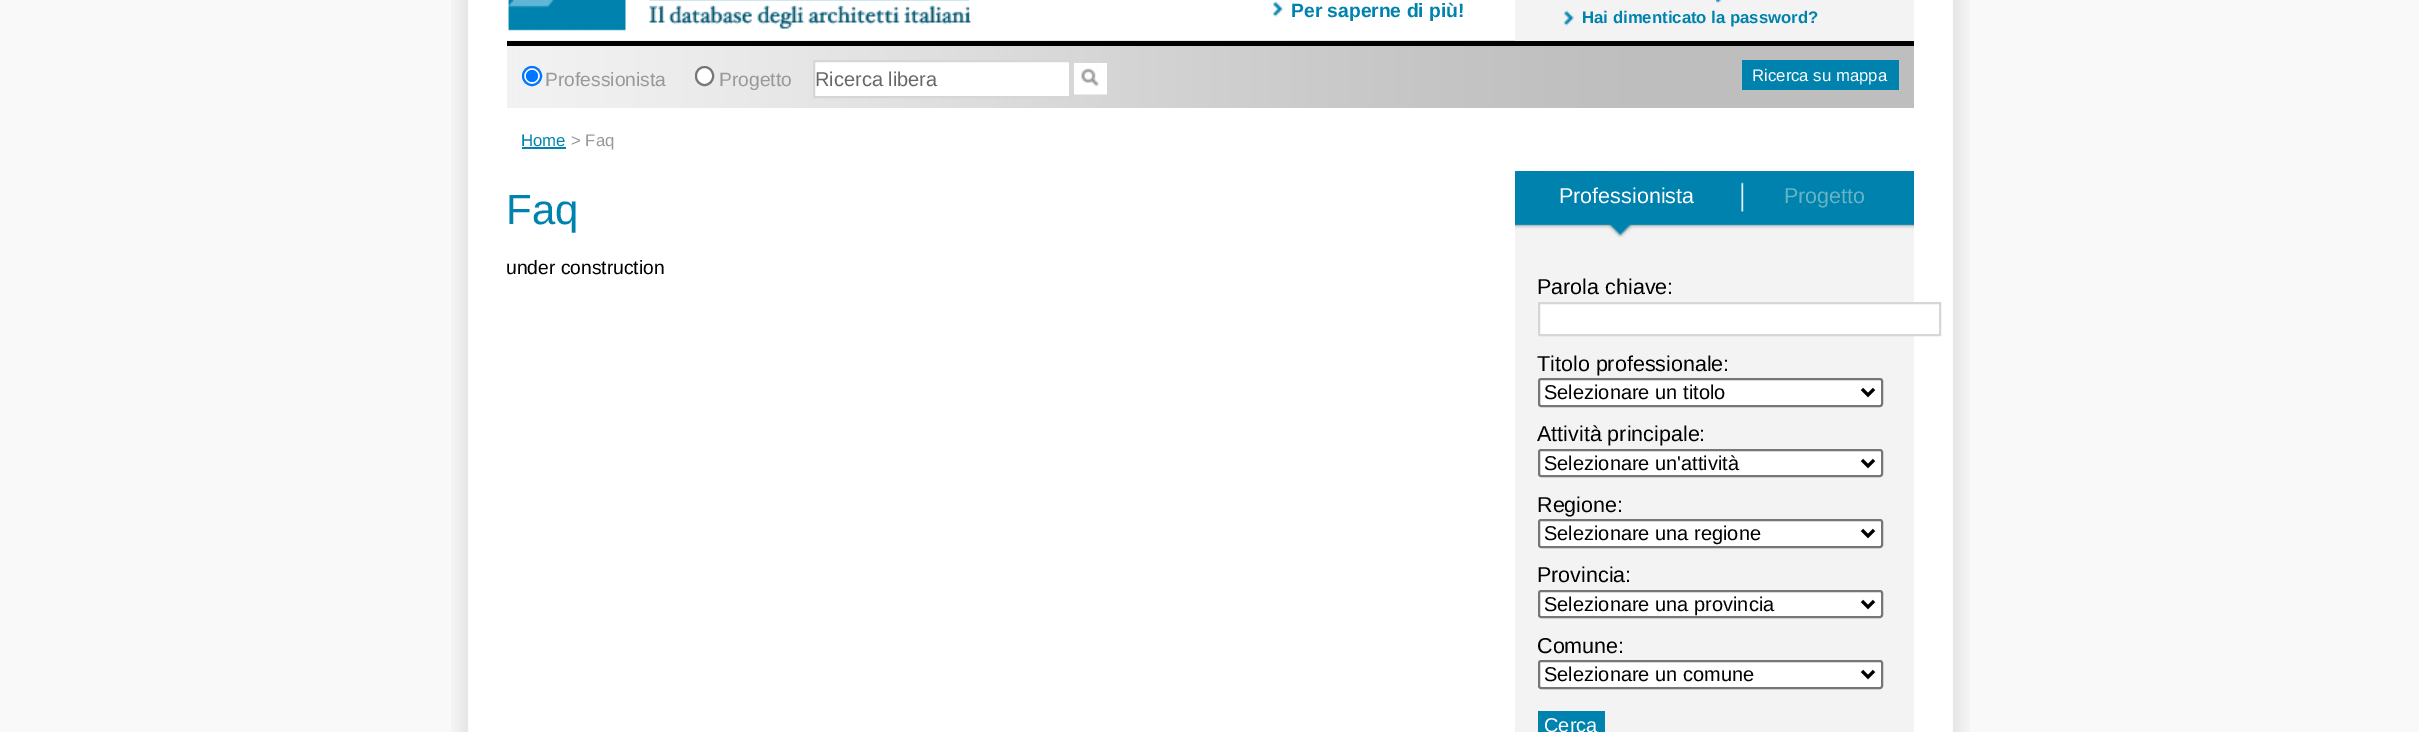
%!PS
<< /PageSize [2419 732] >> setpagedevice
/roundrect { 5 dict begin { /r /h /w /y /x } { exch def } forall
  x r add y moveto x w add y 2 copy h add r arct x w add y h add x 1 index r arct
  x y h add x y r arct x y 2 copy exch w add exch r arct closepath end } def
/picture { 5 dict begin { /h /w /y /x /name } { exch def } forall
  gsave x y translate w h scale
  w h 8 [w 0 0 h 0 0] name (r) file false 3 colorimage grestore end } def
0 732 translate 1 -1 scale
4 setmiterlimit
0.976 setgray
0 0 2419 732 rectfill
(img1.rgb) 451 0 1519 732 picture
(img2.rgb) 508 0 463 31 picture
(img3.rgb) 1273 1 10 16 picture
/LiberationSans-Bold [19.25 0 0 -19.25 0 0] selectfont
0 0.51 0.682 setrgbcolor
1291 17 moveto (Per saperne di più!) show
(img6.rgb) 507 40 1407 68 picture
0.953 setgray
1515 0 399 41 rectfill
(img4.rgb) 1716 0 6 3 picture
(img5.rgb) 1564 10 10 16 picture
/LiberationSans-Bold [16.75 0 0 -16.75 0 0] selectfont
0 0.51 0.682 setrgbcolor
1582 23 moveto (Hai dimenticato la password?) show
0 setgray
507 41 1407 5 rectfill
1 setgray
newpath 532 76 9 0 360 arc closepath gsave fill grestore
0 0.459 1 setrgbcolor
2 setlinewidth
stroke
newpath 532 76 6 0 360 arc closepath fill
/LiberationSans-Regular [19.25 0 0 -19.25 0 0] selectfont
0.6 setgray
545 86 moveto (Professionista) show
1 setgray
696 67 17 18 8.5 roundrect gsave fill grestore
0.463 setgray
stroke
0.6 setgray
719 86 moveto (Progetto) show
1 setgray
newpath 814 61 moveto 1070 61 lineto 1070 97 lineto 814 97 lineto closepath gsave fill grestore
0.839 setgray
stroke
/LiberationSans-Regular [20 0 0 -20 0 0] selectfont
0.404 setgray
815 86 moveto (Ricerca libera) show
(img7.rgb) 1074 63 33 32 picture
0 0.51 0.682 setrgbcolor
1742 60 157 30 rectfill
/LiberationSans-Regular [16.75 0 0 -16.75 0 0] selectfont
1 setgray
1752 81 moveto (Ricerca su mappa) show
0 0.51 0.682 setrgbcolor
521 146 moveto (Home) show
522 147 44 2 rectfill
0.6 setgray
571 146 moveto (> Faq) show
/LiberationSans-Regular [42 0 0 -42 0 0] selectfont
0 0.51 0.682 setrgbcolor
506 224 moveto (Faq) show
/LiberationSans-Regular [19.25 0 0 -19.25 0 0] selectfont
0 setgray
506 274 moveto (under construction) show
0.953 setgray
1515 237 399 495 rectfill
(img8.rgb) 1515 171 399 66 picture
/LiberationSans-Regular [21.5 0 0 -21.5 0 0] selectfont
1 setgray
1559 203 moveto (Professionista) show
0.404 0.706 0.769 setrgbcolor
1784 203 moveto (Progetto) show
0 setgray
1537 294 moveto (Parola chiave:) show
1 setgray
1540 304 374 30 rectfill
0.839 setgray
1539 303 401 32 rectstroke
0 setgray
1537 371 moveto (Titolo professionale:) show
1 setgray
1539 379 343 27 2 roundrect gsave fill grestore
0.463 setgray
stroke
0 setgray
3 setlinewidth
newpath 1862 389 moveto 1868 395 lineto 1874 389 lineto stroke
/LiberationSans-Regular [20 0 0 -20 0 0] selectfont
1544 399 moveto (Selezionare un titolo) show
/LiberationSans-Regular [21.5 0 0 -21.5 0 0] selectfont
1537 441 moveto (Attività principale:) show
1 setgray
1539 450 343 26 2 roundrect gsave fill grestore
0.463 setgray
2 setlinewidth
stroke
0 setgray
3 setlinewidth
newpath 1862 460 moveto 1868 466 lineto 1874 460 lineto stroke
/LiberationSans-Regular [20 0 0 -20 0 0] selectfont
1544 470 moveto (Selezionare un'attività) show
/LiberationSans-Regular [21.5 0 0 -21.5 0 0] selectfont
1537 512 moveto (Regione:) show
1 setgray
1539 520 343 27 2 roundrect gsave fill grestore
0.463 setgray
2 setlinewidth
stroke
0 setgray
3 setlinewidth
newpath 1862 530 moveto 1868 536 lineto 1874 530 lineto stroke
/LiberationSans-Regular [20 0 0 -20 0 0] selectfont
1544 540 moveto (Selezionare una regione) show
/LiberationSans-Regular [21.5 0 0 -21.5 0 0] selectfont
1537 582 moveto (Provincia:) show
1 setgray
1539 591 343 26 2 roundrect gsave fill grestore
0.463 setgray
2 setlinewidth
stroke
0 setgray
3 setlinewidth
newpath 1862 601 moveto 1868 607 lineto 1874 601 lineto stroke
/LiberationSans-Regular [20 0 0 -20 0 0] selectfont
1544 611 moveto (Selezionare una provincia) show
/LiberationSans-Regular [21.5 0 0 -21.5 0 0] selectfont
1537 653 moveto (Comune:) show
1 setgray
1539 661 343 27 2 roundrect gsave fill grestore
0.463 setgray
2 setlinewidth
stroke
0 setgray
3 setlinewidth
newpath 1862 671 moveto 1868 677 lineto 1874 671 lineto stroke
/LiberationSans-Regular [20 0 0 -20 0 0] selectfont
1544 681 moveto (Selezionare un comune) show
0 0.51 0.682 setrgbcolor
1538 711 67 21 rectfill
1 setgray
1544 732 moveto (Cerca) show
showpage
